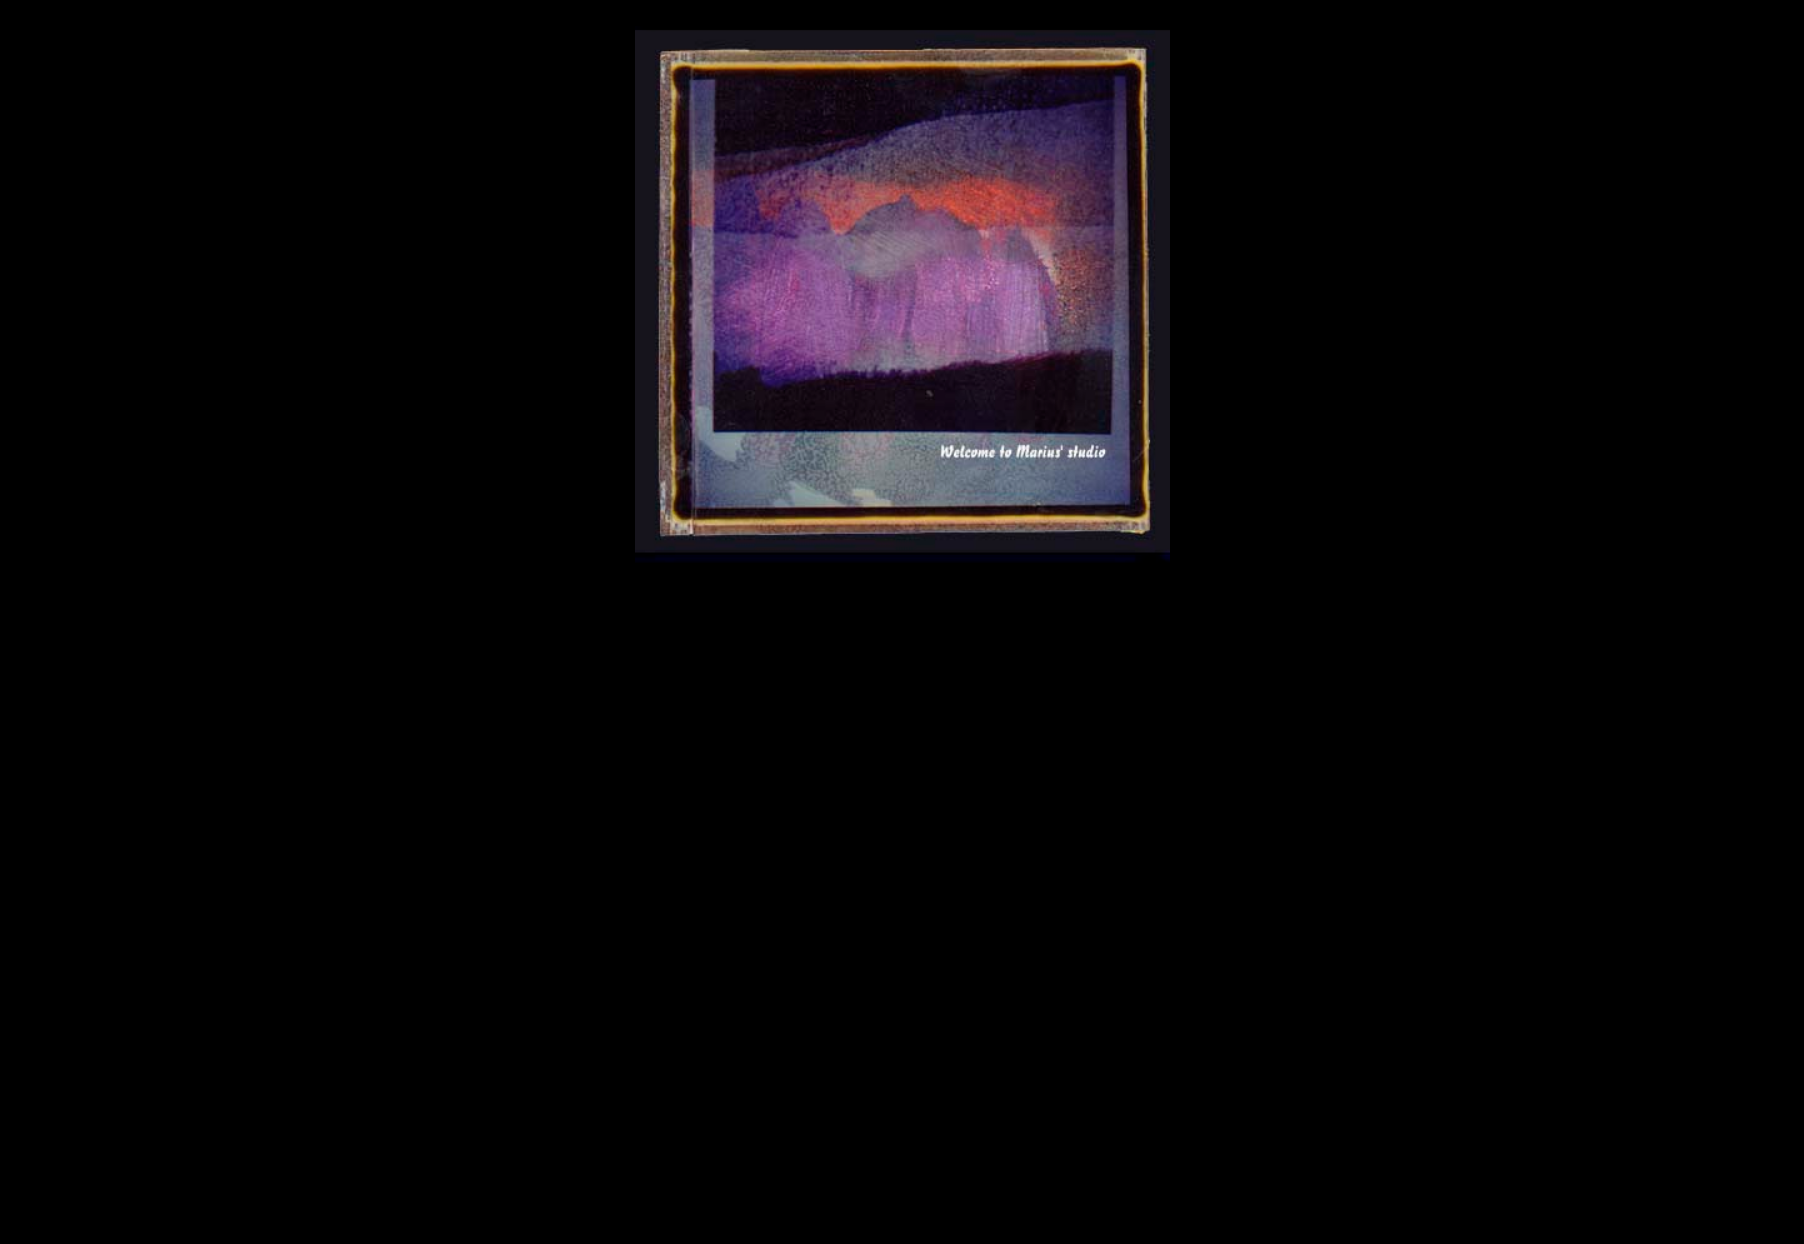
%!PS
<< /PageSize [1804 1244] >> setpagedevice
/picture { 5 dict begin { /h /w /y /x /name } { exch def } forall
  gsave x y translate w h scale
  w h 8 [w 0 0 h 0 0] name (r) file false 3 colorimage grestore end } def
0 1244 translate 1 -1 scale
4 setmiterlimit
0 setgray
0 0 1804 1244 rectfill
(img1.rgb) 635 26 535 537 picture
showpage
